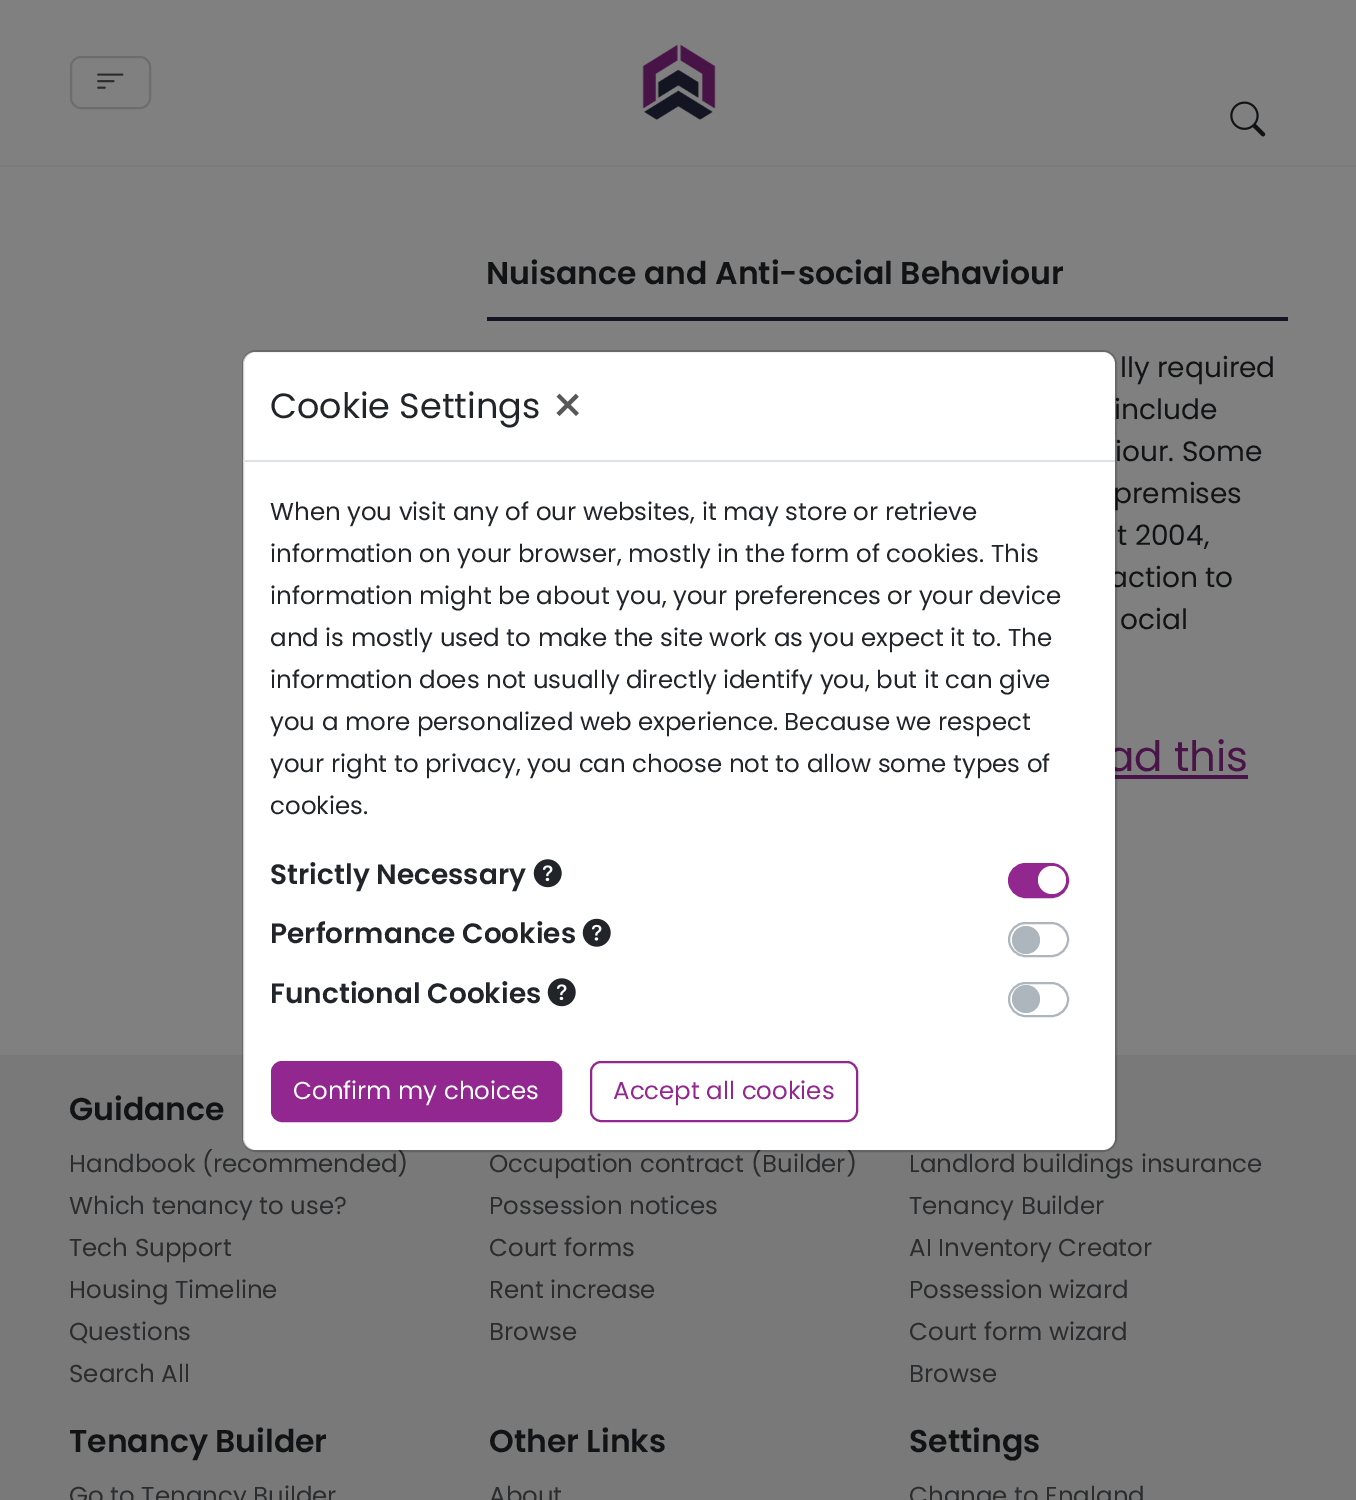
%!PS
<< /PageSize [1356 1500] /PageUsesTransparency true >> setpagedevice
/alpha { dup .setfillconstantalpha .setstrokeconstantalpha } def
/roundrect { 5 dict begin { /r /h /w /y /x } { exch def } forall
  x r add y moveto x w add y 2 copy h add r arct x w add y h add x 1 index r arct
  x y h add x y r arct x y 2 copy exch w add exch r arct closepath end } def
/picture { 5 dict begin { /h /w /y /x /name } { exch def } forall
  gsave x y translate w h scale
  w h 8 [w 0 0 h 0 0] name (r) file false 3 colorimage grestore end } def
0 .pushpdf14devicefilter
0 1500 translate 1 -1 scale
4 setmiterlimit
0.502 setgray
0 0 1356 1500 rectfill
0.482 setgray
0 165 1356 2 rectfill
0.427 setgray
2 setlinewidth
71 57 79 51 10 roundrect stroke
(img1.rgb) 97 73 27 16 picture
(img2.rgb) 642 44 74 76 picture
(img3.rgb) 1230 101 36 36 picture
0.078 0.082 0.137 setrgbcolor
487 317 801 4 rectfill
/Poppins-SemiBold [31.5 0 0 -31.5 0 0] selectfont
0.067 0.075 0.082 setrgbcolor
486 284 moveto (Nuisance and Anti-social Behaviour) show
/Poppins-Regular [28 0 0 -28 0 0] selectfont
1120 377 moveto (lly required) show
1114 419 moveto (include) show
1115 461 moveto (iour. Some) show
1113 503 moveto (premises) show
1117 545 moveto (t 2004,) show
1109 587 moveto (action to) show
1120 629 moveto (ocial) show
/Poppins-Regular [42 0 0 -42 0 0] selectfont
0.286 0.078 0.282 setrgbcolor
1106 771 moveto (ad this) show
1115 775 133 4 rectfill
0.475 setgray
0 1055 1356 445 rectfill
/Poppins-SemiBold [31.5 0 0 -31.5 0 0] selectfont
0.067 0.075 0.082 setrgbcolor
69 1120 moveto (Guidance) show
/Poppins-Regular [24.5 0 0 -24.5 0 0] selectfont
0.169 0.173 0.18 setrgbcolor
69 1172 moveto (Handbook \(recommended\)) show
69 1214 moveto (Which tenancy to use?) show
69 1256 moveto (Tech Support) show
69 1298 moveto (Housing Timeline) show
69 1340 moveto (Questions) show
69 1382 moveto (Search All) show
489 1172 moveto (Occupation contract \(Builder\)) show
489 1214 moveto (Possession notices) show
489 1256 moveto (Court forms) show
489 1298 moveto (Rent increase) show
489 1340 moveto (Browse) show
909 1172 moveto (Landlord buildings insurance) show
909 1214 moveto (Tenancy Builder) show
909 1256 moveto (AI Inventory Creator) show
909 1298 moveto (Possession wizard) show
909 1340 moveto (Court form wizard) show
909 1382 moveto (Browse) show
/Poppins-SemiBold [31.5 0 0 -31.5 0 0] selectfont
0.067 0.075 0.082 setrgbcolor
69 1452 moveto (Tenancy Builder) show
/Poppins-Regular [24.5 0 0 -24.5 0 0] selectfont
0.169 0.173 0.18 setrgbcolor
69 1504 moveto (Go to Tenancy Builder) show
/Poppins-SemiBold [31.5 0 0 -31.5 0 0] selectfont
0.067 0.075 0.082 setrgbcolor
489 1452 moveto (Other Links) show
/Poppins-Regular [24.5 0 0 -24.5 0 0] selectfont
0.169 0.173 0.18 setrgbcolor
489 1504 moveto (About) show
/Poppins-SemiBold [31.5 0 0 -31.5 0 0] selectfont
0.067 0.075 0.082 setrgbcolor
909 1452 moveto (Settings) show
/Poppins-Regular [24.5 0 0 -24.5 0 0] selectfont
0.169 0.173 0.18 setrgbcolor
909 1504 moveto (Change to England) show
1 setgray
243 352 872 798 12 roundrect fill
0.18 alpha
0 setgray
243 351 873 800 13 roundrect stroke
1 alpha
0.871 0.886 0.902 setrgbcolor
243 460 872 2 rectfill
/Poppins-Regular [35 0 0 -35 0 0] selectfont
0.129 0.145 0.161 setrgbcolor
270 418 moveto (Cookie Settings) show
/Poppins-Regular [52 0 0 -52 0 0] selectfont
0.345 setgray
551 424 moveto (×) show
/Poppins-Regular [24.5 0 0 -24.5 0 0] selectfont
0.129 0.145 0.161 setrgbcolor
270 520 moveto (When you visit any of our websites, it may store or retrieve) show
270 562 moveto (information on your browser, mostly in the form of cookies. This) show
270 604 moveto (information might be about you, your preferences or your device) show
270 646 moveto (and is mostly used to make the site work as you expect it to. The) show
270 688 moveto (information does not usually directly identify you, but it can give) show
270 730 moveto (you a more personalized web experience. Because we respect) show
270 772 moveto (your right to privacy, you can choose not to allow some types of) show
270 814 moveto (cookies.) show
/Poppins-SemiBold [28 0 0 -28 0 0] selectfont
270 884 moveto (Strictly Necessary) show
(img4.rgb) 533 859 29 29 picture
0.569 0.153 0.561 setrgbcolor
1009 864 59 33 16.5 roundrect gsave fill grestore
stroke
1 setgray
newpath 1052 880 14 0 360 arc closepath fill
0.129 0.145 0.161 setrgbcolor
270 943 moveto (Performance Cookies) show
(img5.rgb) 582 918 29 29 picture
0.678 0.71 0.741 setrgbcolor
1009 923 59 33 16.5 roundrect stroke
newpath 1026 940 14 0 360 arc closepath fill
0.129 0.145 0.161 setrgbcolor
270 1003 moveto (Functional Cookies) show
(img4.rgb) 547 978 29 29 picture
0.678 0.71 0.741 setrgbcolor
1009 983 59 33 16.5 roundrect stroke
newpath 1026 999 14 0 360 arc closepath fill
0.569 0.153 0.561 setrgbcolor
272 1062 289 59 10 roundrect gsave fill grestore
stroke
/Poppins-Regular [24.5 0 0 -24.5 0 0] selectfont
1 setgray
293 1099 moveto (Confirm my choices) show
0.569 0.153 0.561 setrgbcolor
591 1062 266 59 10 roundrect stroke
613 1099 moveto (Accept all cookies) show
.poppdf14devicefilter showpage
